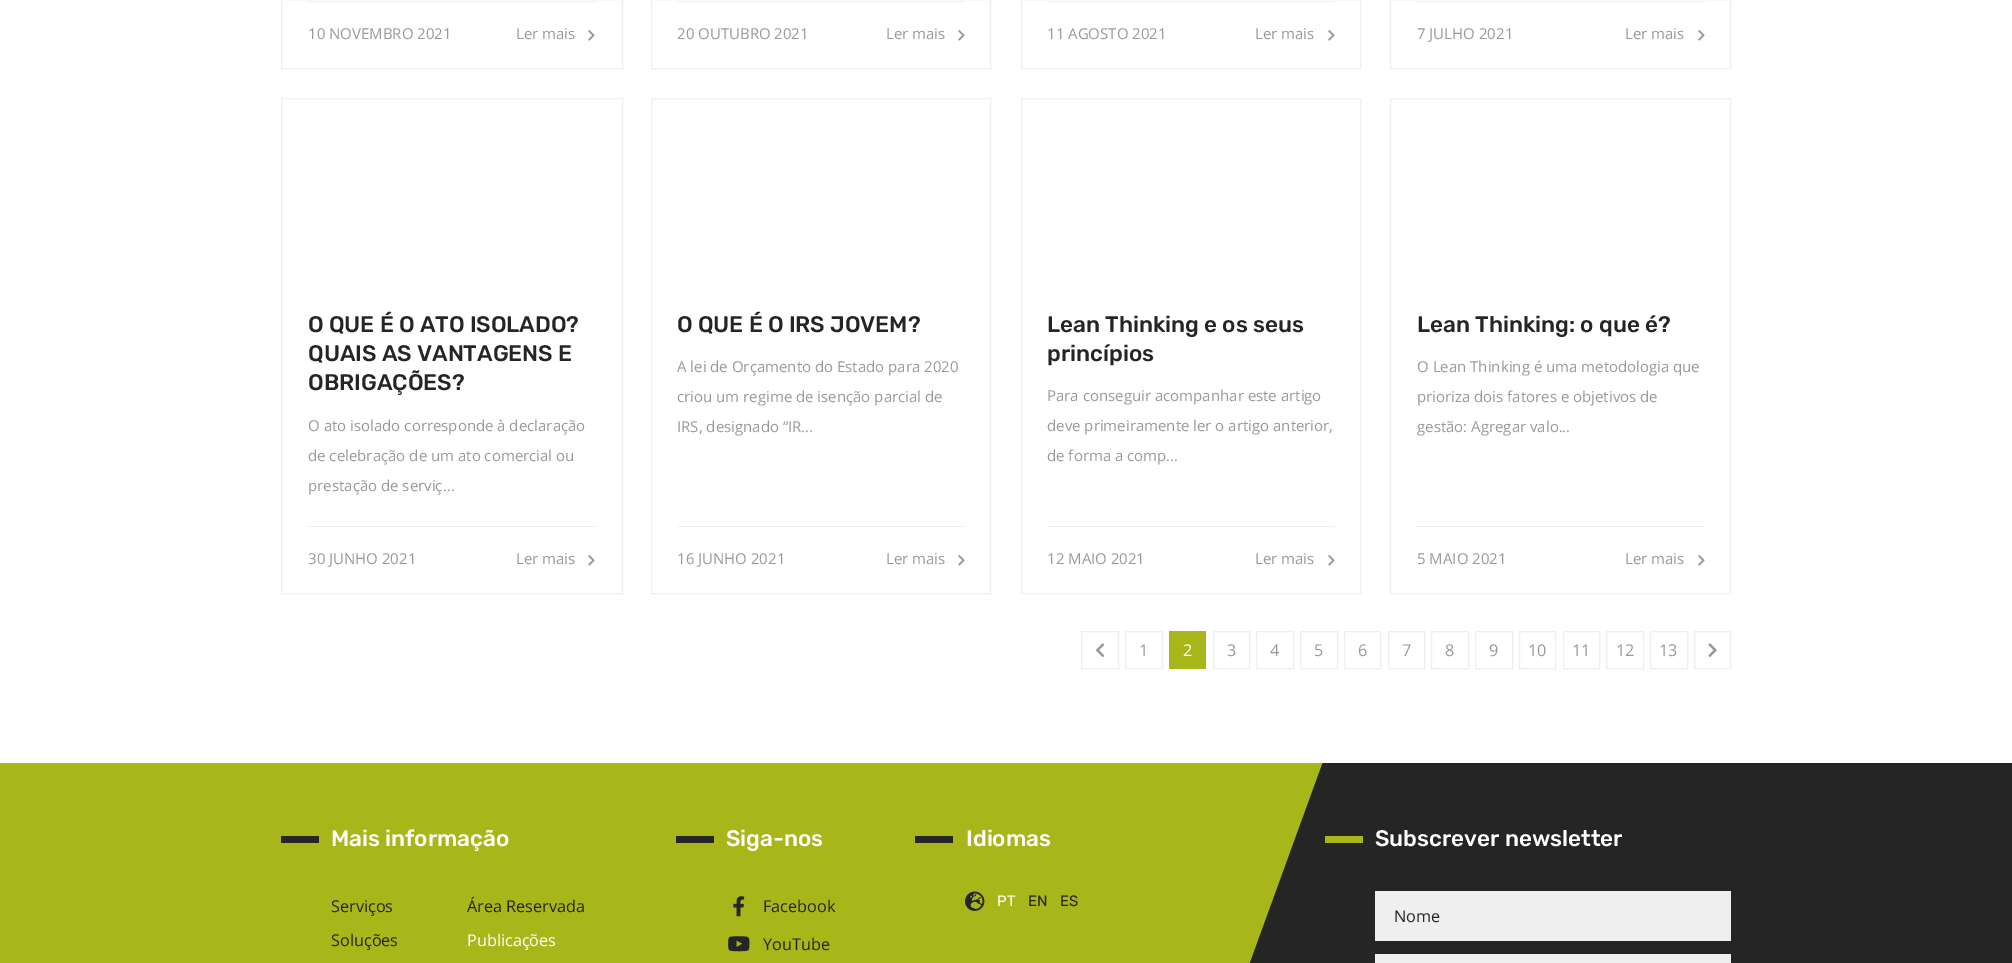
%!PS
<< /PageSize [2012 963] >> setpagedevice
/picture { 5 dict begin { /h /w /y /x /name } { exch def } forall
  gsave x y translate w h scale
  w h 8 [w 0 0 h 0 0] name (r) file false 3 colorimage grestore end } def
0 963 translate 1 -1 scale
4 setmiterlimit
1 setgray
0 0 2012 963 rectfill
0.937 setgray
281.5 -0.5 341 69 rectstroke
308 1 288 1 rectfill
/OpenSans-Regular [15 0 0 -15 0 0] selectfont
0.6 setgray
308 39 moveto (10 NOVEMBRO 2021) show
516 39 moveto (Ler mais) show
(img1.rgb) 588 30 7 11 picture
0.937 setgray
651.5 -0.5 339 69 rectstroke
678 1 287 1 rectfill
0.6 setgray
677 39 moveto (20 OUTUBRO 2021) show
886 39 moveto (Ler mais) show
(img1.rgb) 958 30 7 11 picture
0.937 setgray
1021.5 -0.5 339 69 rectstroke
1048 1 287 1 rectfill
0.6 setgray
1047 39 moveto (11 AGOSTO 2021) show
1255 39 moveto (Ler mais) show
(img1.rgb) 1328 30 7 11 picture
0.937 setgray
1390.5 -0.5 340 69 rectstroke
1416 1 289 1 rectfill
0.6 setgray
1417 39 moveto (7 JULHO 2021) show
1625 39 moveto (Ler mais) show
(img1.rgb) 1698 30 7 11 picture
0.937 setgray
281.5 98.5 341 495 rectstroke
/Rubik-Medium [22.5 0 0 -22.5 0 0] selectfont
0.145 setgray
308 332 moveto (O QUE É O ATO ISOLADO?) show
308 361 moveto (QUAIS AS VANTAGENS E) show
308 390 moveto (OBRIGAÇÕES?) show
/OpenSans-Regular [15 0 0 -15 0 0] selectfont
0.6 setgray
308 431 moveto (O ato isolado corresponde à declaração) show
308 461 moveto (de celebração de um ato comercial ou) show
308 491 moveto (prestação de serviç...) show
0.937 setgray
308 526 288 1 rectfill
0.6 setgray
308 564 moveto (30 JUNHO 2021) show
516 564 moveto (Ler mais) show
(img1.rgb) 588 555 7 11 picture
0.937 setgray
651.5 98.5 339 495 rectstroke
/Rubik-Medium [22.5 0 0 -22.5 0 0] selectfont
0.145 setgray
677 332 moveto (O QUE É O IRS JOVEM?) show
/OpenSans-Regular [15 0 0 -15 0 0] selectfont
0.6 setgray
677 372 moveto (A lei de Orçamento do Estado para 2020) show
677 402 moveto (criou um regime de isenção parcial de) show
677 432 moveto (IRS, designado “IR...) show
0.937 setgray
678 526 287 1 rectfill
0.6 setgray
677 564 moveto (16 JUNHO 2021) show
886 564 moveto (Ler mais) show
(img1.rgb) 958 555 7 11 picture
0.937 setgray
1021.5 98.5 339 495 rectstroke
/Rubik-Medium [22.5 0 0 -22.5 0 0] selectfont
0.145 setgray
1047 332 moveto (Lean Thinking e os seus) show
1047 361 moveto (princípios) show
/OpenSans-Regular [15 0 0 -15 0 0] selectfont
0.6 setgray
1047 401 moveto (Para conseguir acompanhar este artigo) show
1047 431 moveto (deve primeiramente ler o artigo anterior,) show
1047 461 moveto (de forma a comp...) show
0.937 setgray
1048 526 287 1 rectfill
0.6 setgray
1047 564 moveto (12 MAIO 2021) show
1255 564 moveto (Ler mais) show
(img1.rgb) 1328 555 7 11 picture
0.937 setgray
1390.5 98.5 340 495 rectstroke
/Rubik-Medium [22.5 0 0 -22.5 0 0] selectfont
0.145 setgray
1417 332 moveto (Lean Thinking: o que é?) show
/OpenSans-Regular [15 0 0 -15 0 0] selectfont
0.6 setgray
1417 372 moveto (O Lean Thinking é uma metodologia que) show
1417 402 moveto (prioriza dois fatores e objetivos de) show
1417 432 moveto (gestão: Agregar valo...) show
0.937 setgray
1416 526 289 1 rectfill
0.6 setgray
1417 564 moveto (5 MAIO 2021) show
1625 564 moveto (Ler mais) show
(img1.rgb) 1698 555 7 11 picture
0.937 setgray
1081.5 631.5 37 37 rectstroke
(img2.rgb) 1096 643 9 14 picture
1125.5 631.5 37 37 rectstroke
/OpenSans-Regular [16.25 0 0 -16.25 0 0] selectfont
0.6 setgray
1139 656 moveto (1) show
0.659 0.714 0.098 setrgbcolor
1169 631 37 38 rectfill
1 setgray
1183 656 moveto (2) show
0.937 setgray
1213.5 631.5 36 37 rectstroke
0.6 setgray
1227 656 moveto (3) show
0.937 setgray
1256.5 631.5 37 37 rectstroke
0.6 setgray
1270 656 moveto (4) show
0.937 setgray
1300.5 631.5 37 37 rectstroke
0.6 setgray
1314 656 moveto (5) show
0.937 setgray
1344.5 631.5 36 37 rectstroke
0.6 setgray
1358 656 moveto (6) show
0.937 setgray
1388.5 631.5 36 37 rectstroke
0.6 setgray
1402 656 moveto (7) show
0.937 setgray
1431.5 631.5 37 37 rectstroke
0.6 setgray
1445 656 moveto (8) show
0.937 setgray
1475.5 631.5 37 37 rectstroke
0.6 setgray
1489 656 moveto (9) show
0.937 setgray
1519.5 631.5 36 37 rectstroke
0.6 setgray
1528 656 moveto (10) show
0.937 setgray
1563.5 631.5 36 37 rectstroke
0.6 setgray
1572 656 moveto (11) show
0.937 setgray
1606.5 631.5 37 37 rectstroke
0.6 setgray
1616 656 moveto (12) show
0.937 setgray
1650.5 631.5 37 37 rectstroke
0.6 setgray
1659 656 moveto (13) show
0.937 setgray
1694.5 631.5 36 37 rectstroke
(img3.rgb) 1708 643 9 14 picture
0.659 0.714 0.098 setrgbcolor
0 763 1323 200 rectfill
0.145 setgray
281 836 38 7 rectfill
/Rubik-Medium [22.5 0 0 -22.5 0 0] selectfont
1 setgray
331 846 moveto (Mais informação) show
/OpenSans-Regular [16.25 0 0 -16.25 0 0] selectfont
0.145 setgray
331 912 moveto (Serviços) show
467 912 moveto (Área Reservada) show
331 946 moveto (Soluções) show
1 setgray
467 946 moveto (Publicações) show
0.145 setgray
676 836 38 7 rectfill
/Rubik-Medium [22.5 0 0 -22.5 0 0] selectfont
1 setgray
726 846 moveto (Siga-nos) show
(img4.rgb) 733 896 12 21 picture
/OpenSans-Regular [16.25 0 0 -16.25 0 0] selectfont
0.145 setgray
763 912 moveto (Facebook) show
(img5.rgb) 728 936 22 16 picture
763 950 moveto (YouTube) show
915 836 38 7 rectfill
/Rubik-Medium [22.5 0 0 -22.5 0 0] selectfont
1 setgray
966 846 moveto (Idiomas) show
(img6.rgb) 965 891 20 20 picture
/Rubik-Regular [15 0 0 -15 0 0] selectfont
997 906 moveto (PT) show
0.145 setgray
1028 906 moveto (EN) show
1060 906 moveto (ES) show
gsave
0 763 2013 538 rectclip
newpath 1323 762 moveto 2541 762 lineto 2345 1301 lineto 1127 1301 lineto closepath fill
grestore
0.659 0.714 0.098 setrgbcolor
1325 836 38 7 rectfill
/Rubik-Medium [22.5 0 0 -22.5 0 0] selectfont
1 setgray
1375 846 moveto (Subscrever newsletter) show
0.937 setgray
1375 891 356 50 rectfill
/OpenSans-Regular [16.25 0 0 -16.25 0 0] selectfont
0.145 setgray
1394 922 moveto (Nome) show
0.937 setgray
1375 954 356 9 rectfill
showpage
